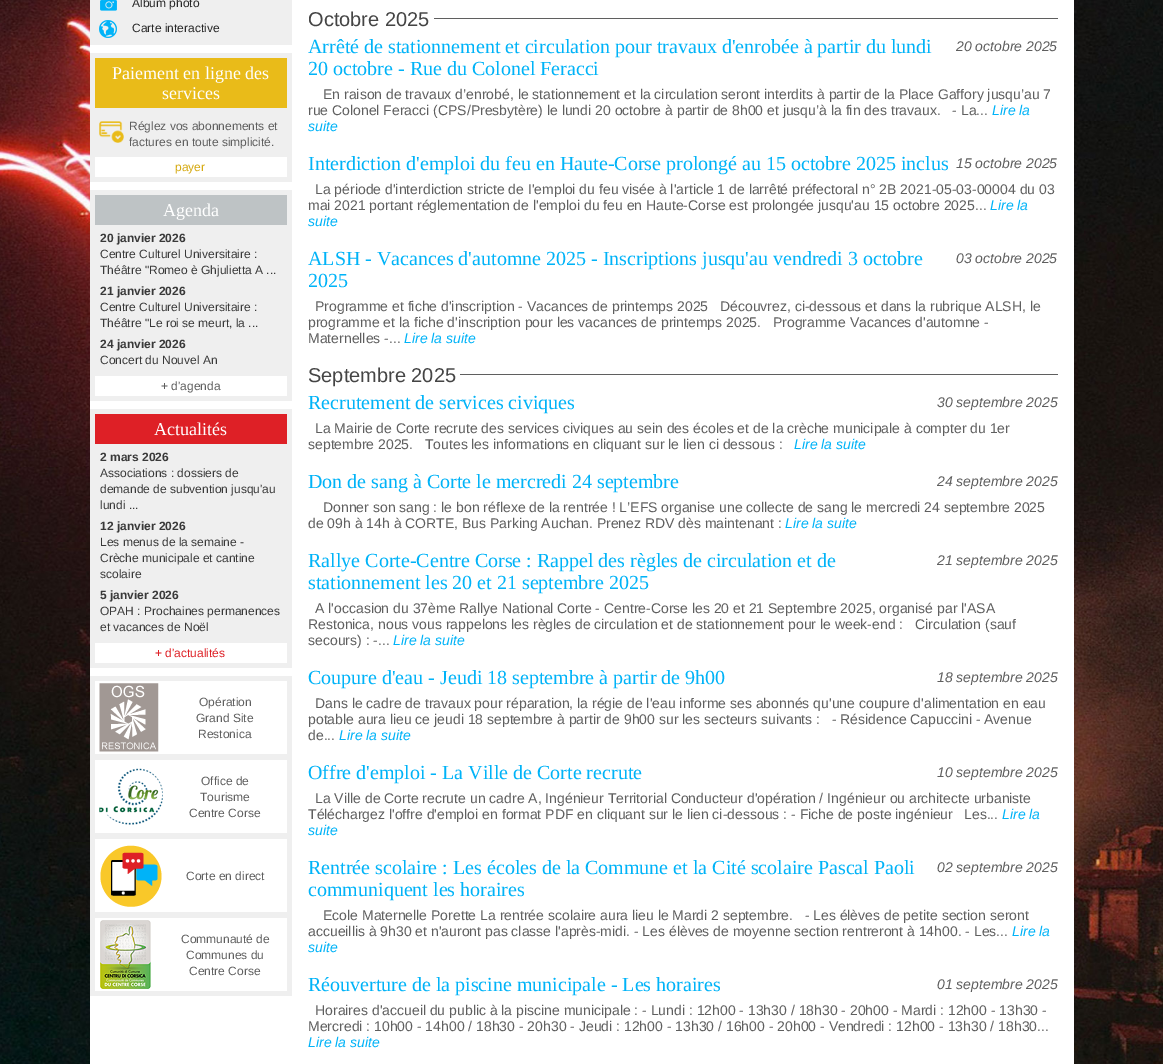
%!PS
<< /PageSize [1163 1064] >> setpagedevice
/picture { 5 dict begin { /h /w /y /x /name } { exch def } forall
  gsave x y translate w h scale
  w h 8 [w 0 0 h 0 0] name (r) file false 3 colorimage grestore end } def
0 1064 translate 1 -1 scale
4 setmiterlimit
1 setgray
0 0 1163 1064 rectfill
(img1.rgb) 0 0 1163 1064 picture
90 0 984 1064 rectfill
0.937 setgray
90 0 202 45 rectfill
(img2.rgb) 100 0 17 11 picture
/LiberationSans-Regular [12 0 0 -12 0 0] selectfont
0.153 setgray
132 7 moveto (Album photo) show
(img3.rgb) 99 20 18 18 picture
132 32 moveto (Carte interactive) show
0.937 setgray
90 53 202 129 rectfill
0.914 0.733 0.098 setrgbcolor
95 58 192 50 rectfill
/LiberationSerif-Regular [18 0 0 -18 0 0] selectfont
1 setgray
112 79 moveto (Paiement en ligne des) show
162 99 moveto (services) show
(img4.rgb) 99 121 25 22 picture
/LiberationSans-Regular [12 0 0 -12 0 0] selectfont
0.373 setgray
129 130 moveto (Réglez vos abonnements et) show
129 146 moveto (factures en toute simplicité.) show
1 setgray
95 157 192 20 rectfill
0.839 0.667 0.067 setrgbcolor
175 171 moveto (payer) show
0.937 setgray
90 190 202 211 rectfill
0.745 0.765 0.773 setrgbcolor
95 195 192 30 rectfill
/LiberationSerif-Regular [18 0 0 -18 0 0] selectfont
1 setgray
163 216 moveto (Agenda) show
/LiberationSans-Bold [12 0 0 -12 0 0] selectfont
0.224 setgray
100 242 moveto (20 janvier 2026) show
/LiberationSans-Regular [12 0 0 -12 0 0] selectfont
100 258 moveto (Centre Culturel Universitaire :) show
100 274 moveto (Théâtre "Romeo è Ghjulietta A ...) show
/LiberationSans-Bold [12 0 0 -12 0 0] selectfont
100 295 moveto (21 janvier 2026) show
/LiberationSans-Regular [12 0 0 -12 0 0] selectfont
100 311 moveto (Centre Culturel Universitaire :) show
100 327 moveto (Théâtre "Le roi se meurt, la ...) show
/LiberationSans-Bold [12 0 0 -12 0 0] selectfont
100 348 moveto (24 janvier 2026) show
/LiberationSans-Regular [12 0 0 -12 0 0] selectfont
100 364 moveto (Concert du Nouvel An) show
1 setgray
95 376 192 20 rectfill
0.373 setgray
161 390 moveto (+ d'agenda) show
0.937 setgray
90 409 202 259 rectfill
0.871 0.125 0.149 setrgbcolor
95 414 192 30 rectfill
/LiberationSerif-Regular [18 0 0 -18 0 0] selectfont
1 setgray
154 435 moveto (Actualités) show
/LiberationSans-Bold [12 0 0 -12 0 0] selectfont
0.224 setgray
100 461 moveto (2 mars 2026) show
/LiberationSans-Regular [12 0 0 -12 0 0] selectfont
100 477 moveto (Associations : dossiers de) show
100 493 moveto (demande de subvention jusqu'au) show
100 509 moveto (lundi ...) show
/LiberationSans-Bold [12 0 0 -12 0 0] selectfont
100 530 moveto (12 janvier 2026) show
/LiberationSans-Regular [12 0 0 -12 0 0] selectfont
100 546 moveto (Les menus de la semaine -) show
100 562 moveto (Crèche municipale et cantine) show
100 578 moveto (scolaire) show
/LiberationSans-Bold [12 0 0 -12 0 0] selectfont
100 599 moveto (5 janvier 2026) show
/LiberationSans-Regular [12 0 0 -12 0 0] selectfont
100 615 moveto (OPAH : Prochaines permanences) show
100 631 moveto (et vacances de Noël) show
1 setgray
95 643 192 20 rectfill
0.871 0.125 0.149 setrgbcolor
155 657 moveto (+ d'actualités) show
0.937 setgray
90 676 202 320 rectfill
1 setgray
95 681 192 73 rectfill
(img5.rgb) 99 683 60 69 picture
0.373 setgray
199 706 moveto (Opération) show
196 722 moveto (Grand Site) show
198 738 moveto (Restonica) show
1 setgray
95 760 192 73 rectfill
(img6.rgb) 99 768 64 57 picture
0.373 setgray
201 785 moveto (Office de) show
200 801 moveto (Tourisme) show
189 817 moveto (Centre Corse) show
1 setgray
95 839 192 73 rectfill
(img7.rgb) 100 845 62 62 picture
0.373 setgray
186 880 moveto (Corte en direct) show
1 setgray
95 918 192 73 rectfill
(img8.rgb) 100 920 51 69 picture
0.373 setgray
181 943 moveto (Communauté de) show
186 959 moveto (Communes du) show
189 975 moveto (Centre Corse) show
434 18 624 1 rectfill
/LiberationSans-Regular [20 0 0 -20 0 0] selectfont
0.271 setgray
308 26 moveto (Octobre 2025) show
/LiberationSerif-Regular [20 0 0 -20 0 0] selectfont
0 0.702 0.973 setrgbcolor
308 53 moveto (Arrêté de stationnement et circulation pour travaux d'enrobée à partir du lundi) show
/LiberationSans-Italic [14 0 0 -14 0 0] selectfont
0.373 setgray
956 51 moveto (20 octobre 2025) show
/LiberationSerif-Regular [20 0 0 -20 0 0] selectfont
0 0.702 0.973 setrgbcolor
308 75 moveto (20 octobre - Rue du Colonel Feracci) show
/LiberationSans-Regular [14 0 0 -14 0 0] selectfont
0.373 setgray
323 99 moveto (En raison de travaux d’enrobé, le stationnement et la circulation seront interdits à partir de la Place Gaffory jusqu’au 7) show
308 115 moveto (rue Colonel Feracci \(CPS/Presbytère\) le lundi 20 octobre à partir de 8h00 et jusqu’à la fin des travaux.   - La...) show
/LiberationSans-Italic [14 0 0 -14 0 0] selectfont
0 0.702 0.973 setrgbcolor
992 115 moveto (Lire la) show
308 131 moveto (suite) show
/LiberationSerif-Regular [20 0 0 -20 0 0] selectfont
308 170 moveto (Interdiction d'emploi du feu en Haute-Corse prolongé au 15 octobre 2025 inclus) show
/LiberationSans-Italic [14 0 0 -14 0 0] selectfont
0.373 setgray
956 168 moveto (15 octobre 2025) show
/LiberationSans-Regular [14 0 0 -14 0 0] selectfont
315 194 moveto (La période d'interdiction stricte de I'emploi du feu visée à l'article 1 de larrêté préfectoral n° 2B 2021-05-03-00004 du 03) show
308 210 moveto (mai 2021 portant réglementation de l'emploi du feu en Haute-Corse est prolongée jusqu'au 15 octobre 2025...) show
/LiberationSans-Italic [14 0 0 -14 0 0] selectfont
0 0.702 0.973 setrgbcolor
990 210 moveto (Lire la) show
308 226 moveto (suite) show
/LiberationSerif-Regular [20 0 0 -20 0 0] selectfont
308 265 moveto (ALSH - Vacances d'automne 2025 - Inscriptions jusqu'au vendredi 3 octobre) show
/LiberationSans-Italic [14 0 0 -14 0 0] selectfont
0.373 setgray
956 263 moveto (03 octobre 2025) show
/LiberationSerif-Regular [20 0 0 -20 0 0] selectfont
0 0.702 0.973 setrgbcolor
308 287 moveto (2025) show
/LiberationSans-Regular [14 0 0 -14 0 0] selectfont
0.373 setgray
315 311 moveto (Programme et fiche d'inscription - Vacances de printemps 2025   Découvrez, ci-dessous et dans la rubrique ALSH, le) show
308 327 moveto (programme et la fiche d'inscription pour les vacances de printemps 2025.   Programme Vacances d'automne -) show
308 343 moveto (Maternelles -...) show
/LiberationSans-Italic [14 0 0 -14 0 0] selectfont
0 0.702 0.973 setrgbcolor
404 343 moveto (Lire la suite) show
0.373 setgray
460 374 598 1 rectfill
/LiberationSans-Regular [20 0 0 -20 0 0] selectfont
0.271 setgray
308 382 moveto (Septembre 2025) show
/LiberationSerif-Regular [20 0 0 -20 0 0] selectfont
0 0.702 0.973 setrgbcolor
308 409 moveto (Recrutement de services civiques) show
/LiberationSans-Italic [14 0 0 -14 0 0] selectfont
0.373 setgray
937 407 moveto (30 septembre 2025) show
/LiberationSans-Regular [14 0 0 -14 0 0] selectfont
315 433 moveto (La Mairie de Corte recrute des services civiques au sein des écoles et de la crèche municipale à compter du 1er) show
308 449 moveto (septembre 2025.   Toutes les informations en cliquant sur le lien ci dessous :) show
/LiberationSans-Italic [14 0 0 -14 0 0] selectfont
0 0.702 0.973 setrgbcolor
794 449 moveto (Lire la suite) show
/LiberationSerif-Regular [20 0 0 -20 0 0] selectfont
308 488 moveto (Don de sang à Corte le mercredi 24 septembre) show
/LiberationSans-Italic [14 0 0 -14 0 0] selectfont
0.373 setgray
937 486 moveto (24 septembre 2025) show
/LiberationSans-Regular [14 0 0 -14 0 0] selectfont
323 512 moveto (Donner son sang : le bon réflexe de la rentrée ! L’EFS organise une collecte de sang le mercredi 24 septembre 2025) show
308 528 moveto (de 09h à 14h à CORTE, Bus Parking Auchan. Prenez RDV dès maintenant :) show
/LiberationSans-Italic [14 0 0 -14 0 0] selectfont
0 0.702 0.973 setrgbcolor
785 528 moveto (Lire la suite) show
/LiberationSerif-Regular [20 0 0 -20 0 0] selectfont
308 567 moveto (Rallye Corte-Centre Corse : Rappel des règles de circulation et de) show
/LiberationSans-Italic [14 0 0 -14 0 0] selectfont
0.373 setgray
937 565 moveto (21 septembre 2025) show
/LiberationSerif-Regular [20 0 0 -20 0 0] selectfont
0 0.702 0.973 setrgbcolor
308 589 moveto (stationnement les 20 et 21 septembre 2025) show
/LiberationSans-Regular [14 0 0 -14 0 0] selectfont
0.373 setgray
315 613 moveto (A l'occasion du 37ème Rallye National Corte - Centre-Corse les 20 et 21 Septembre 2025, organisé par l'ASA) show
308 629 moveto (Restonica, nous vous rappelons les règles de circulation et de stationnement pour le week-end :   Circulation \(sauf) show
308 645 moveto (secours\) : -...) show
/LiberationSans-Italic [14 0 0 -14 0 0] selectfont
0 0.702 0.973 setrgbcolor
393 645 moveto (Lire la suite) show
/LiberationSerif-Regular [20 0 0 -20 0 0] selectfont
308 684 moveto (Coupure d'eau - Jeudi 18 septembre à partir de 9h00) show
/LiberationSans-Italic [14 0 0 -14 0 0] selectfont
0.373 setgray
937 682 moveto (18 septembre 2025) show
/LiberationSans-Regular [14 0 0 -14 0 0] selectfont
315 708 moveto (Dans le cadre de travaux pour réparation, la régie de l'eau informe ses abonnés qu'une coupure d'alimentation en eau) show
308 724 moveto (potable aura lieu ce jeudi 18 septembre à partir de 9h00 sur les secteurs suivants :   - Résidence Capuccini - Avenue) show
308 740 moveto (de...) show
/LiberationSans-Italic [14 0 0 -14 0 0] selectfont
0 0.702 0.973 setrgbcolor
339 740 moveto (Lire la suite) show
/LiberationSerif-Regular [20 0 0 -20 0 0] selectfont
308 779 moveto (Offre d'emploi - La Ville de Corte recrute) show
/LiberationSans-Italic [14 0 0 -14 0 0] selectfont
0.373 setgray
937 777 moveto (10 septembre 2025) show
/LiberationSans-Regular [14 0 0 -14 0 0] selectfont
315 803 moveto (La Ville de Corte recrute un cadre A, Ingénieur Territorial Conducteur d'opération / Ingénieur ou architecte urbaniste) show
308 819 moveto (Téléchargez l'offre d'emploi en format PDF en cliquant sur le lien ci-dessous : - Fiche de poste ingénieur) show
964 819 moveto (Les...) show
/LiberationSans-Italic [14 0 0 -14 0 0] selectfont
0 0.702 0.973 setrgbcolor
1002 819 moveto (Lire la) show
308 835 moveto (suite) show
/LiberationSerif-Regular [20 0 0 -20 0 0] selectfont
308 874 moveto (Rentrée scolaire : Les écoles de la Commune et la Cité scolaire Pascal Paoli) show
/LiberationSans-Italic [14 0 0 -14 0 0] selectfont
0.373 setgray
937 872 moveto (02 septembre 2025) show
/LiberationSerif-Regular [20 0 0 -20 0 0] selectfont
0 0.702 0.973 setrgbcolor
308 896 moveto (communiquent les horaires) show
/LiberationSans-Regular [14 0 0 -14 0 0] selectfont
0.373 setgray
323 920 moveto (Ecole Maternelle Porette La rentrée scolaire aura lieu le Mardi 2 septembre.   - Les élèves de petite section seront) show
308 936 moveto (accueillis à 9h30 et n'auront pas classe l'après-midi. - Les élèves de moyenne section rentreront à 14h00. - Les...) show
/LiberationSans-Italic [14 0 0 -14 0 0] selectfont
0 0.702 0.973 setrgbcolor
1012 936 moveto (Lire la) show
308 952 moveto (suite) show
/LiberationSerif-Regular [20 0 0 -20 0 0] selectfont
308 991 moveto (Réouverture de la piscine municipale - Les horaires) show
/LiberationSans-Italic [14 0 0 -14 0 0] selectfont
0.373 setgray
937 989 moveto (01 septembre 2025) show
/LiberationSans-Regular [14 0 0 -14 0 0] selectfont
315 1015 moveto (Horaires d'accueil du public à la piscine municipale : - Lundi : 12h00 - 13h30 / 18h30 - 20h00 - Mardi : 12h00 - 13h30 -) show
308 1031 moveto (Mercredi : 10h00 - 14h00 / 18h30 - 20h30 - Jeudi : 12h00 - 13h30 / 16h00 - 20h00 - Vendredi : 12h00 - 13h30 / 18h30...) show
/LiberationSans-Italic [14 0 0 -14 0 0] selectfont
0 0.702 0.973 setrgbcolor
308 1047 moveto (Lire la suite) show
showpage
